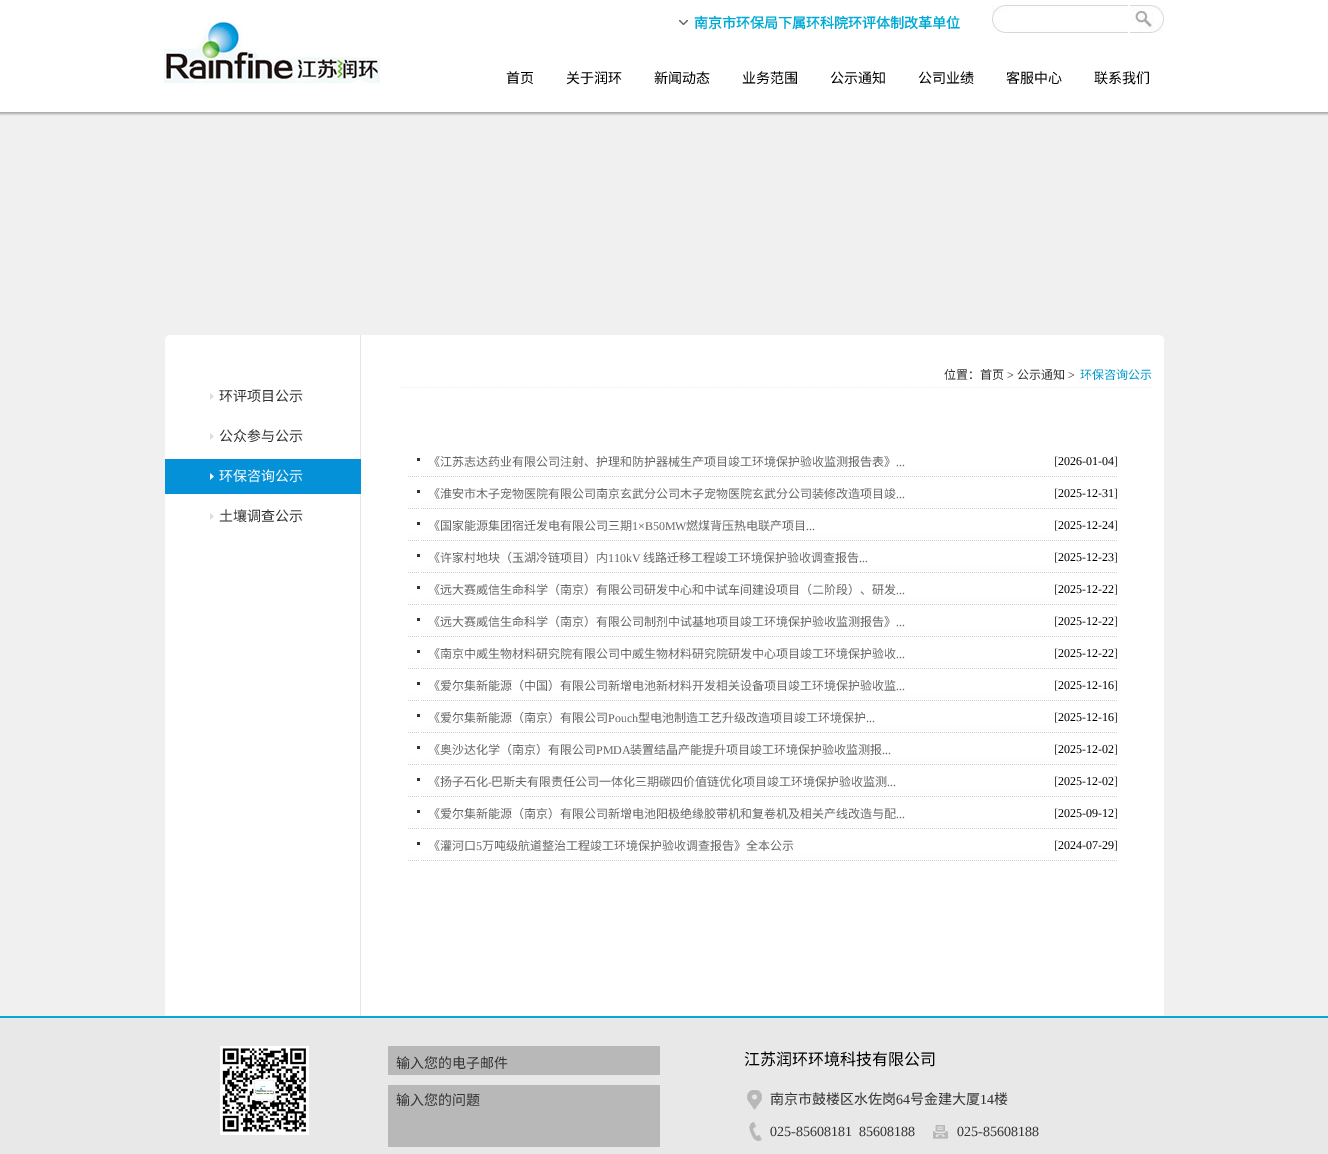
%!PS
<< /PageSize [1328 1154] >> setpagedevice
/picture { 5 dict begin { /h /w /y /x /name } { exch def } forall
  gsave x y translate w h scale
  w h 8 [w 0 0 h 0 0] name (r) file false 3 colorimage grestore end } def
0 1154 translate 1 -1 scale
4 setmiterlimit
0.941 setgray
0 0 1328 1154 rectfill
(img1.rgb) 0 0 1328 116 picture
(img2.rgb) 164 21 216 64 picture
(img3.rgb) 679 20 9 5 picture
/NotoSansCJKSC-Bold [14 0 0 -14 0 0] selectfont
0.004 0.667 0.835 setrgbcolor
694 28 moveto (南京市环保局下属环科院环评体制改革单位) show
(img4.rgb) 992 5 136 28 picture
(img5.rgb) 1130 5 34 28 picture
/NotoSansCJKSC-Regular [14 0 0 -14 0 0] selectfont
0 setgray
506 83 moveto (首页) show
566 83 moveto (关于润环) show
654 83 moveto (新闻动态) show
742 83 moveto (业务范围) show
830 83 moveto (公示通知) show
918 83 moveto (公司业绩) show
1006 83 moveto (客服中心) show
1094 83 moveto (联系我们) show
(img6.rgb) 165 335 999 9 picture
(img7.rgb) 165 344 999 672 picture
(img8.rgb) 210 393 4 7 picture
0.2 setgray
219 401 moveto (环评项目公示) show
(img8.rgb) 210 433 4 7 picture
219 441 moveto (公众参与公示) show
(img9.rgb) 165 459 196 35 picture
1 setgray
219 481 moveto (环保咨询公示) show
(img8.rgb) 210 513 4 7 picture
0.2 setgray
219 521 moveto (土壤调查公示) show
(img10.rgb) 398 387 754 1 picture
/NotoSansCJKSC-Regular [12 0 0 -12 0 0] selectfont
944 379 moveto (位置：首页) show
/LiberationSerif-Regular [12 0 0 -12 0 0] selectfont
1007 379 moveto (>) show
/NotoSansCJKSC-Regular [12 0 0 -12 0 0] selectfont
1017 379 moveto (公示通知) show
/LiberationSerif-Regular [12 0 0 -12 0 0] selectfont
1068 379 moveto (>) show
/NotoSansCJKSC-Regular [12 0 0 -12 0 0] selectfont
0 0.6 0.8 setrgbcolor
1080 379 moveto (环保咨询公示) show
(img11.rgb) 408 457 709 20 picture
0.4 setgray
428 466 moveto (《江苏志达药业有限公司注射、护理和防护器械生产项目竣工环境保护验收监测报告表》) show
/LiberationSerif-Regular [12 0 0 -12 0 0] selectfont
896 466 moveto (...) show
0 setgray
1054 465 moveto ([2026-01-04]) show
(img11.rgb) 408 489 709 20 picture
/NotoSansCJKSC-Regular [12 0 0 -12 0 0] selectfont
0.4 setgray
428 498 moveto (《淮安市木子宠物医院有限公司南京玄武分公司木子宠物医院玄武分公司装修改造项目竣) show
/LiberationSerif-Regular [12 0 0 -12 0 0] selectfont
896 498 moveto (...) show
0 setgray
1054 497 moveto ([2025-12-31]) show
(img11.rgb) 408 521 709 20 picture
/NotoSansCJKSC-Regular [12 0 0 -12 0 0] selectfont
0.4 setgray
428 530 moveto (《国家能源集团宿迁发电有限公司三期) show
/LiberationSerif-Regular [12 0 0 -12 0 0] selectfont
632 530 moveto (1×B50MW) show
/NotoSansCJKSC-Regular [12 0 0 -12 0 0] selectfont
686 530 moveto (燃煤背压热电联产项目) show
/LiberationSerif-Regular [12 0 0 -12 0 0] selectfont
806 530 moveto (...) show
0 setgray
1054 529 moveto ([2025-12-24]) show
(img11.rgb) 408 553 709 20 picture
/NotoSansCJKSC-Regular [12 0 0 -12 0 0] selectfont
0.4 setgray
428 562 moveto (《许家村地块（玉湖冷链项目）内) show
/LiberationSerif-Regular [12 0 0 -12 0 0] selectfont
608 562 moveto (110kV) show
/NotoSansCJKSC-Regular [12 0 0 -12 0 0] selectfont
643 562 moveto (线路迁移工程竣工环境保护验收调查报告) show
/LiberationSerif-Regular [12 0 0 -12 0 0] selectfont
859 562 moveto (...) show
0 setgray
1054 561 moveto ([2025-12-23]) show
(img11.rgb) 408 585 709 20 picture
/NotoSansCJKSC-Regular [12 0 0 -12 0 0] selectfont
0.4 setgray
428 594 moveto (《远大赛威信生命科学（南京）有限公司研发中心和中试车间建设项目（二阶段）、研发) show
/LiberationSerif-Regular [12 0 0 -12 0 0] selectfont
896 594 moveto (...) show
0 setgray
1054 593 moveto ([2025-12-22]) show
(img11.rgb) 408 617 709 20 picture
/NotoSansCJKSC-Regular [12 0 0 -12 0 0] selectfont
0.4 setgray
428 626 moveto (《远大赛威信生命科学（南京）有限公司制剂中试基地项目竣工环境保护验收监测报告》) show
/LiberationSerif-Regular [12 0 0 -12 0 0] selectfont
896 626 moveto (...) show
0 setgray
1054 625 moveto ([2025-12-22]) show
(img11.rgb) 408 649 709 20 picture
/NotoSansCJKSC-Regular [12 0 0 -12 0 0] selectfont
0.4 setgray
428 658 moveto (《南京中威生物材料研究院有限公司中威生物材料研究院研发中心项目竣工环境保护验收) show
/LiberationSerif-Regular [12 0 0 -12 0 0] selectfont
896 658 moveto (...) show
0 setgray
1054 657 moveto ([2025-12-22]) show
(img11.rgb) 408 681 709 20 picture
/NotoSansCJKSC-Regular [12 0 0 -12 0 0] selectfont
0.4 setgray
428 690 moveto (《爱尔集新能源（中国）有限公司新增电池新材料开发相关设备项目竣工环境保护验收监) show
/LiberationSerif-Regular [12 0 0 -12 0 0] selectfont
896 690 moveto (...) show
0 setgray
1054 689 moveto ([2025-12-16]) show
(img11.rgb) 408 713 709 20 picture
/NotoSansCJKSC-Regular [12 0 0 -12 0 0] selectfont
0.4 setgray
428 722 moveto (《爱尔集新能源（南京）有限公司) show
/LiberationSerif-Regular [12 0 0 -12 0 0] selectfont
608 722 moveto (Pouch) show
/NotoSansCJKSC-Regular [12 0 0 -12 0 0] selectfont
638 722 moveto (型电池制造工艺升级改造项目竣工环境保护) show
/LiberationSerif-Regular [12 0 0 -12 0 0] selectfont
866 722 moveto (...) show
0 setgray
1054 721 moveto ([2025-12-16]) show
(img11.rgb) 408 745 709 20 picture
/NotoSansCJKSC-Regular [12 0 0 -12 0 0] selectfont
0.4 setgray
428 754 moveto (《奥沙达化学（南京）有限公司) show
/LiberationSerif-Regular [12 0 0 -12 0 0] selectfont
596 754 moveto (PMDA) show
/NotoSansCJKSC-Regular [12 0 0 -12 0 0] selectfont
630 754 moveto (装置结晶产能提升项目竣工环境保护验收监测报) show
/LiberationSerif-Regular [12 0 0 -12 0 0] selectfont
882 754 moveto (...) show
0 setgray
1054 753 moveto ([2025-12-02]) show
(img11.rgb) 408 777 709 20 picture
/NotoSansCJKSC-Regular [12 0 0 -12 0 0] selectfont
0.4 setgray
428 786 moveto (《扬子石化) show
/LiberationSerif-Regular [12 0 0 -12 0 0] selectfont
488 786 moveto (-) show
/NotoSansCJKSC-Regular [12 0 0 -12 0 0] selectfont
491 786 moveto (巴斯夫有限责任公司一体化三期碳四价值链优化项目竣工环境保护验收监测) show
/LiberationSerif-Regular [12 0 0 -12 0 0] selectfont
0 setgray
1054 785 moveto ([2025-12-02]) show
0.4 setgray
887 786 moveto (...) show
(img11.rgb) 408 809 709 20 picture
/NotoSansCJKSC-Regular [12 0 0 -12 0 0] selectfont
428 818 moveto (《爱尔集新能源（南京）有限公司新增电池阳极绝缘胶带机和复卷机及相关产线改造与配) show
/LiberationSerif-Regular [12 0 0 -12 0 0] selectfont
896 818 moveto (...) show
0 setgray
1054 817 moveto ([2025-09-12]) show
(img11.rgb) 408 841 709 20 picture
/NotoSansCJKSC-Regular [12 0 0 -12 0 0] selectfont
0.4 setgray
428 850 moveto (《灌河口) show
/LiberationSerif-Regular [12 0 0 -12 0 0] selectfont
476 850 moveto (5) show
/NotoSansCJKSC-Regular [12 0 0 -12 0 0] selectfont
482 850 moveto (万吨级航道整治工程竣工环境保护验收调查报告》全本公示) show
/LiberationSerif-Regular [12 0 0 -12 0 0] selectfont
0 setgray
1054 849 moveto ([2024-07-29]) show
(img12.rgb) 0 1016 1328 138 picture
(img13.rgb) 220 1046 89 89 picture
0.722 setgray
388 1046 272 29 rectfill
/NotoSansCJKSC-Regular [14 0 0 -14 0 0] selectfont
0.2 setgray
396 1068 moveto (输入您的电子邮件) show
0.722 setgray
388 1085 272 62 rectfill
0.2 setgray
396 1105 moveto (输入您的问题) show
/NotoSansCJKSC-Regular [16 0 0 -16 0 0] selectfont
0 setgray
744 1065 moveto (江苏润环环境科技有限公司) show
(img14.rgb) 747 1090 15 20 picture
/NotoSansCJKSC-Regular [14 0 0 -14 0 0] selectfont
0.2 setgray
770 1104 moveto (南京市鼓楼区水佐岗) show
/LiberationSerif-Regular [14 0 0 -14 0 0] selectfont
896 1104 moveto (64) show
/NotoSansCJKSC-Regular [14 0 0 -14 0 0] selectfont
910 1104 moveto (号金建大厦) show
/LiberationSerif-Regular [14 0 0 -14 0 0] selectfont
980 1104 moveto (14) show
/NotoSansCJKSC-Regular [14 0 0 -14 0 0] selectfont
994 1104 moveto (楼) show
(img15.rgb) 747 1122 16 20 picture
/LiberationSerif-Regular [14 0 0 -14 0 0] selectfont
770 1136 moveto (025-85608181  85608188) show
(img16.rgb) 933 1124 16 17 picture
957 1136 moveto (025-85608188) show
showpage
